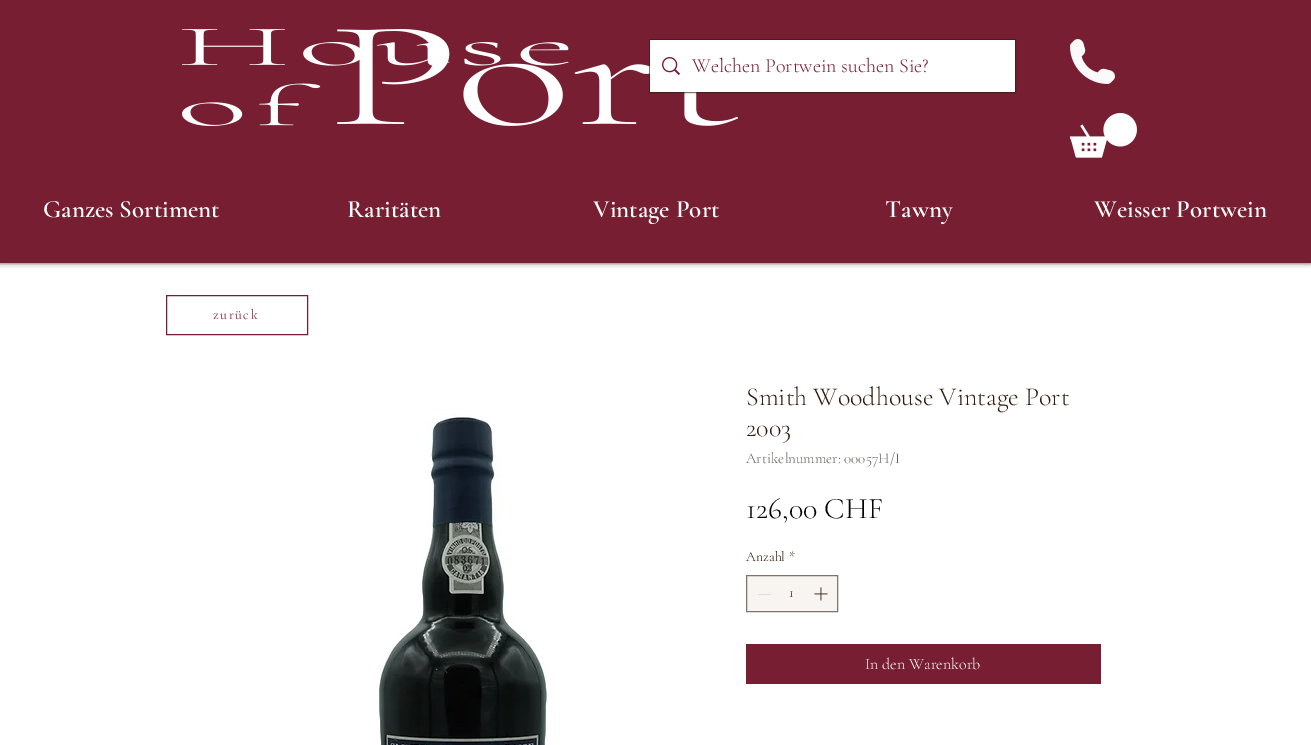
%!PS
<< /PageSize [1311 745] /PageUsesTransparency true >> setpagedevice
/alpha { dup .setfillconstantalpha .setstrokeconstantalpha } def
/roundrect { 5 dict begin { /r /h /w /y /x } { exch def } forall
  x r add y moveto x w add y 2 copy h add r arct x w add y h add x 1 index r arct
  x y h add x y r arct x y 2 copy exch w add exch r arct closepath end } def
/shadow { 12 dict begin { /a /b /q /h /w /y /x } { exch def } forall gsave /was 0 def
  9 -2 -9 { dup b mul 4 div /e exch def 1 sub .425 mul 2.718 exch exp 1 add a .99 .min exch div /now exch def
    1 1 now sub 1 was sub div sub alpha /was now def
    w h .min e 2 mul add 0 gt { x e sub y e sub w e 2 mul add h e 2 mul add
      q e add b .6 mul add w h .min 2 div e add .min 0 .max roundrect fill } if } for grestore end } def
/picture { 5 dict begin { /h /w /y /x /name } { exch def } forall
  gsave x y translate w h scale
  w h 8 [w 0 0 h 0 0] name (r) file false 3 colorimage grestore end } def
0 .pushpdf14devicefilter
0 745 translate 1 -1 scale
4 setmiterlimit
1 setgray
0 0 1311 745 rectfill
0 setgray
0 0 1311 263 0 2.5 0.7 shadow
0.471 0.118 0.196 setrgbcolor
0 0 1311 263 rectfill
(img1.rgb) 182 29 556 97 picture
0.6 alpha
0.188 0.114 0.063 setrgbcolor
649.5 39.5 366 53 rectstroke
1 alpha
1 setgray
650 40 365 52 rectfill
(img2.rgb) 662 57 18 18 picture
/CormorantGaramond-Light [20 0 0 -20 0 0] selectfont
0.471 0.118 0.196 setrgbcolor
692 72 moveto (Welchen Portwein suchen Sie?) show
(img3.rgb) 1070 39 45 45 picture
(img4.rgb) 1070 113 67 45 picture
/CormorantGaramond-SemiBold [25 0 0 -25 0 0] selectfont
1 setgray
43 217 moveto (Ganzes Sortiment) show
347 217 moveto (Raritäten) show
593 217 moveto (Vintage Port) show
885 217 moveto (Tawny) show
1094 217 moveto (Weisser Portwein) show
0.471 0.118 0.196 setrgbcolor
166.5 295.5 141 39 rectstroke
/CormorantGaramond-Light [14 0 0 -14 0 0] selectfont
213 319 moveto 1.5 0 (zurück) ashow
(img5.rgb) 376 414 172 331 picture
/CormorantGaramond-Light [26 0 0 -26 0 0] selectfont
0.188 0.114 0.063 setrgbcolor
746 405 moveto (Smith Woodhouse Vintage Port) show
746 436 moveto (2003) show
/CormorantGaramond-Light [15 0 0 -15 0 0] selectfont
0.388 0.384 0.376 setrgbcolor
746 463 moveto (Artikelnummer: 00057H/I) show
/CormorantGaramond-Light [30 0 0 -30 0 0] selectfont
0 setgray
746 518 moveto (126,00 CHF) show
/CormorantGaramond-Light [14 0 0 -14 0 0] selectfont
0.188 0.114 0.063 setrgbcolor
746 561 moveto (Anzahl) show
789 561 moveto (*) show
0.973 0.957 0.945 setrgbcolor
newpath 746.5 575.5 moveto 837.5 575.5 lineto 837.5 611.5 lineto 746.5 611.5 lineto closepath gsave fill grestore
0.502 0.451 0.416 setrgbcolor
stroke
0.878 0.871 0.863 setrgbcolor
758 594 13 1 rectfill
0.188 0.114 0.063 setrgbcolor
789 597 moveto (1) show
(img6.rgb) 814 587 14 14 picture
0.471 0.118 0.196 setrgbcolor
746 644 355 40 rectfill
/CormorantGaramond-Light [16 0 0 -16 0 0] selectfont
1 setgray
865 669 moveto (In den Warenkorb) show
.poppdf14devicefilter showpage
